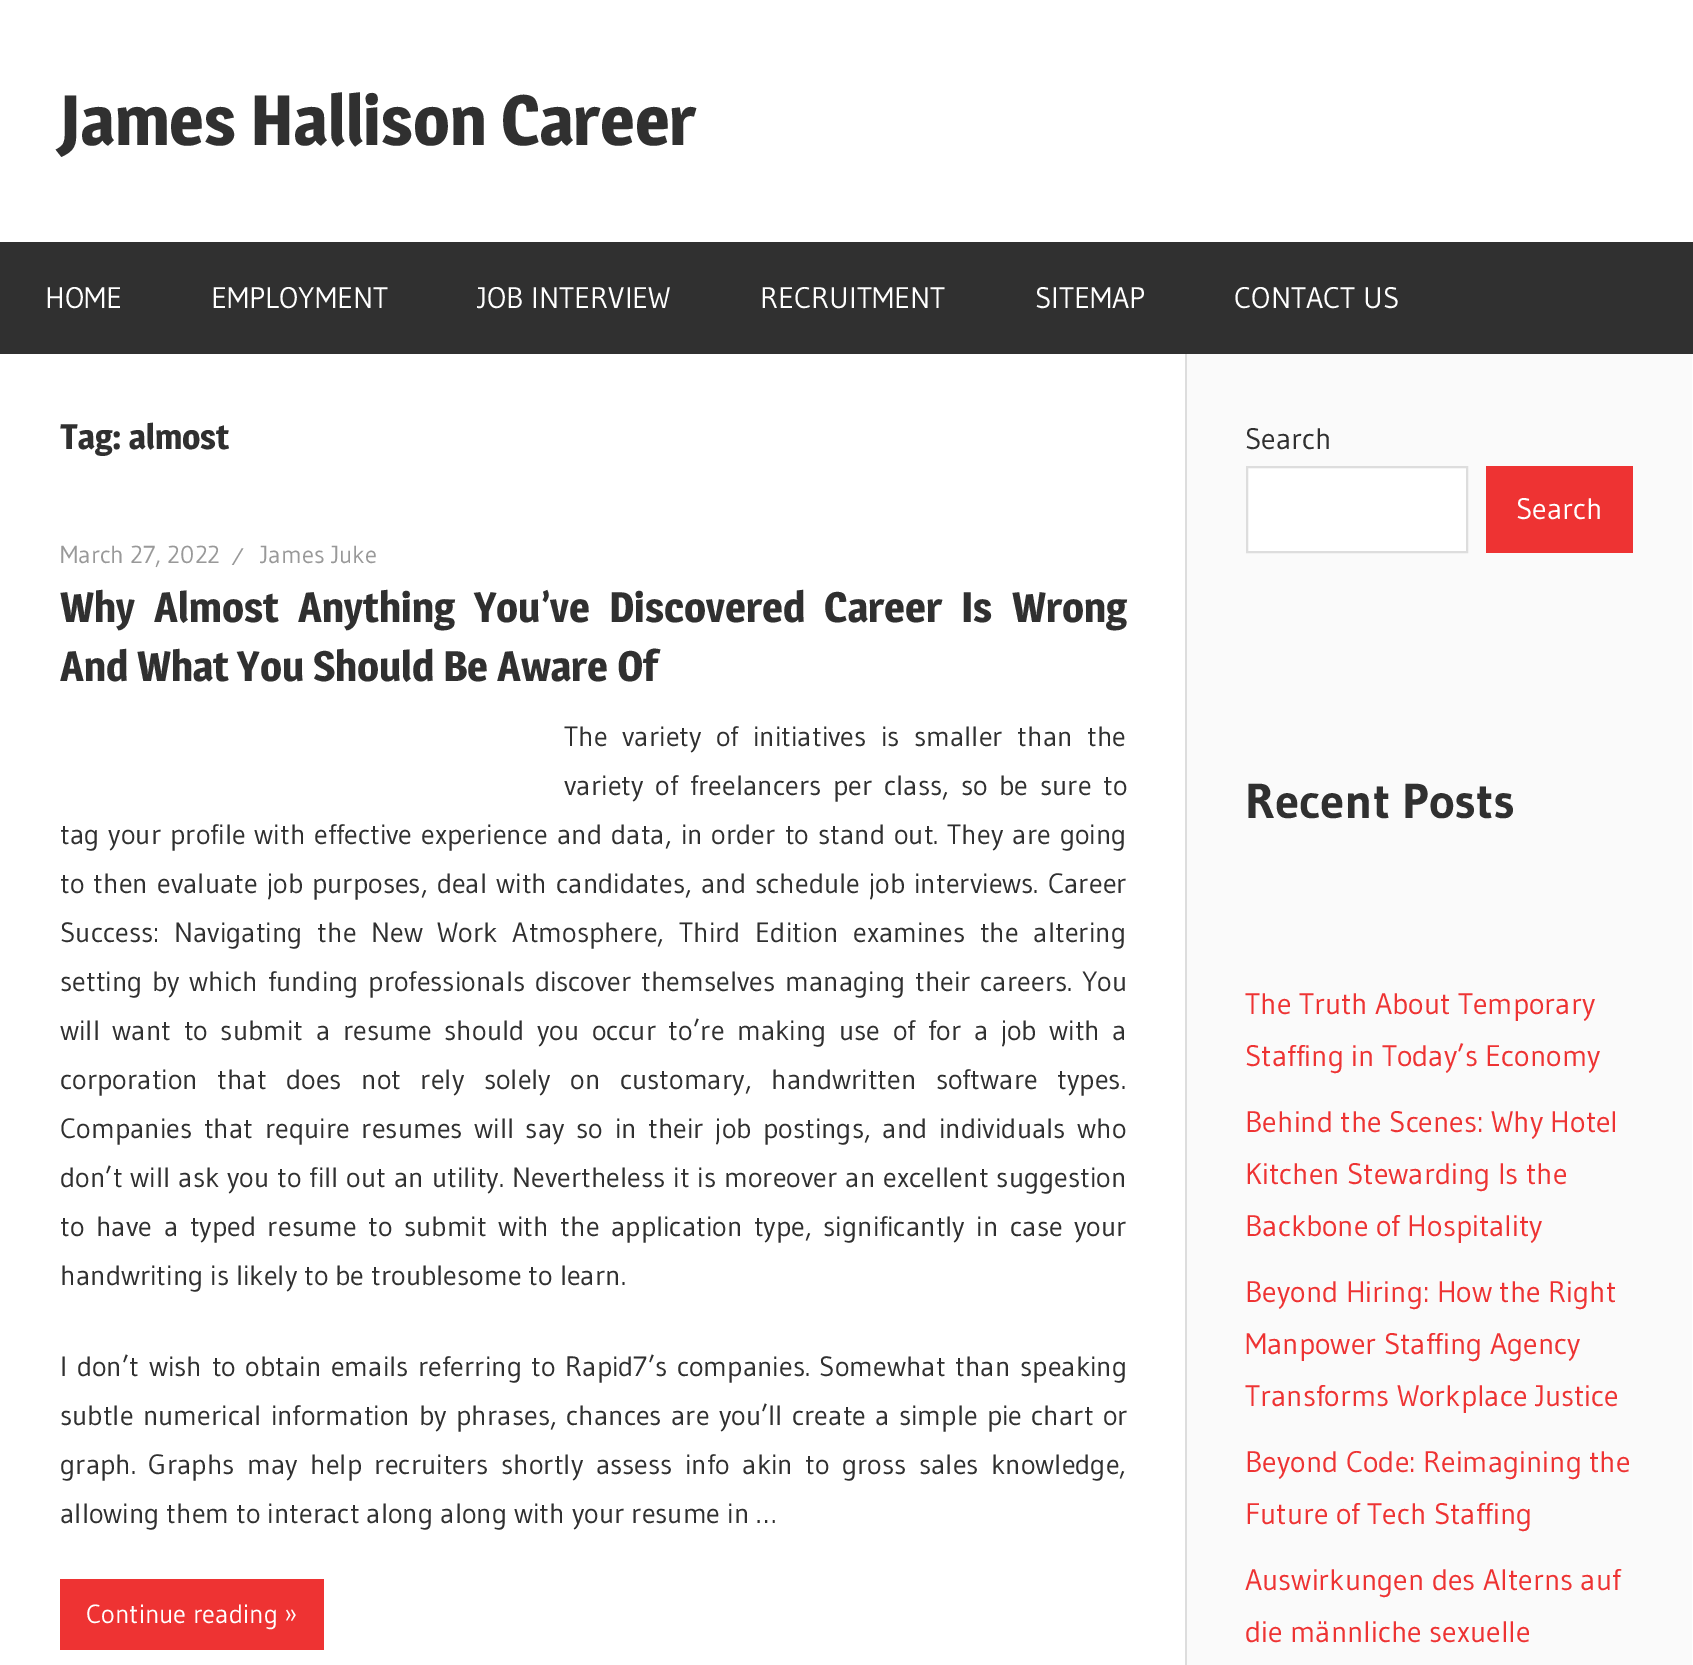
%!PS
<< /PageSize [1693 1665] >> setpagedevice
0 1665 translate 1 -1 scale
4 setmiterlimit
1 setgray
0 0 1693 1665 rectfill
/Magra-Bold [70 0 0 -70 0 0] selectfont
0.188 setgray
60 145 moveto (James Hallison Career) show
0 242 1693 112 rectfill
/Gudea-Regular [29.75 0 0 -29.75 0 0] selectfont
1 setgray
45 308 moveto (HOME) show
211 308 moveto (EMPLOYMENT) show
477 308 moveto (JOB INTERVIEW) show
760 308 moveto (RECRUITMENT) show
1035 308 moveto (SITEMAP) show
1234 308 moveto (CONTACT US) show
/Magra-Bold [35 0 0 -35 0 0] selectfont
0.188 setgray
60 449 moveto (Tag: almost) show
/Gudea-Regular [24.5 0 0 -24.5 0 0] selectfont
0.6 setgray
60 563 moveto (March 27, 2022) show
232 565 moveto (⁄) show
260 563 moveto (James Juke) show
/Magra-Bold [42 0 0 -42 0 0] selectfont
0.188 setgray
60 622 moveto 10.75 0 32 (Why Almost Anything You’ve Discovered Career Is Wrong) widthshow
60 681 moveto (And What You Should Be Aware Of) show
/Gudea-Regular [28 0 0 -28 0 0] selectfont
564 746 moveto 7.5 0 32 (The variety of initiatives is smaller than the) widthshow
564 795 moveto 4.75 0 32 (variety of freelancers per class, so be sure to) widthshow
60 844 moveto 2 0 32 (tag your profile with effective experience and data, in order to stand out. They are going) widthshow
60 893 moveto 2.1 0 32 (to then evaluate job purposes, deal with candidates, and schedule job interviews. Career) widthshow
60 942 moveto 7.75 0 32 (Success: Navigating the New Work Atmosphere, Third Edition examines the altering) widthshow
60 991 moveto 2.6 0 32 (setting by which funding professionals discover themselves managing their careers. You) widthshow
60 1040 moveto 5.6 0 32 (will want to submit a resume should you occur to’re making use of for a job with a) widthshow
60 1089 moveto 12.5 0 32 (corporation that does not rely solely on customary, handwritten software types.) widthshow
60 1138 moveto 4.6 0 32 (Companies that require resumes will say so in their job postings, and individuals who) widthshow
60 1187 moveto 1 0 32 (don’t will ask you to fill out an utility. Nevertheless it is moreover an excellent suggestion) widthshow
60 1236 moveto 4.6 0 32 (to have a typed resume to submit with the application type, significantly in case your) widthshow
60 1285 moveto (handwriting is likely to be troublesome to learn.) show
60 1376 moveto 2.6 0 32 (I don’t wish to obtain emails referring to Rapid7’s companies. Somewhat than speaking) widthshow
60 1425 moveto 2.25 0 32 (subtle numerical information by phrases, chances are you’ll create a simple pie chart or) widthshow
60 1474 moveto 5.5 0 32 (graph. Graphs may help recruiters shortly assess info akin to gross sales knowledge,) widthshow
60 1523 moveto (allowing them to interact along along with your resume in …) show
0.933 0.2 0.2 setrgbcolor
60 1579 264 71 rectfill
/Gudea-Regular [26.25 0 0 -26.25 0 0] selectfont
1 setgray
86 1623 moveto (Continue reading ») show
0.98 setgray
1187 354 505 1311 rectfill
0.867 setgray
1185 354 2 1311 rectfill
/Gudea-Regular [29.75 0 0 -29.75 0 0] selectfont
0.188 setgray
1245 449 moveto (Search) show
1 setgray
newpath 1247 467 moveto 1467 467 lineto 1467 552 lineto 1247 552 lineto closepath gsave fill grestore
0.867 setgray
2 setlinewidth
stroke
0.933 0.2 0.2 setrgbcolor
1486 466 147 87 rectfill
1 setgray
1516 519 moveto (Search) show
/Gudea-Bold [49 0 0 -49 0 0] selectfont
0.188 setgray
1245 818 moveto (Recent Posts) show
/Gudea-Regular [29.75 0 0 -29.75 0 0] selectfont
0.933 0.2 0.2 setrgbcolor
1245 1014 moveto (The Truth About Temporary) show
1245 1066 moveto (Staffing in Today’s Economy) show
1245 1132 moveto (Behind the Scenes: Why Hotel) show
1245 1184 moveto (Kitchen Stewarding Is the) show
1245 1236 moveto (Backbone of Hospitality) show
1245 1302 moveto (Beyond Hiring: How the Right) show
1245 1354 moveto (Manpower Staffing Agency) show
1245 1406 moveto (Transforms Workplace Justice) show
1245 1472 moveto (Beyond Code: Reimagining the) show
1245 1524 moveto (Future of Tech Staffing) show
1245 1590 moveto (Auswirkungen des Alterns auf) show
1245 1642 moveto (die männliche sexuelle) show
showpage
